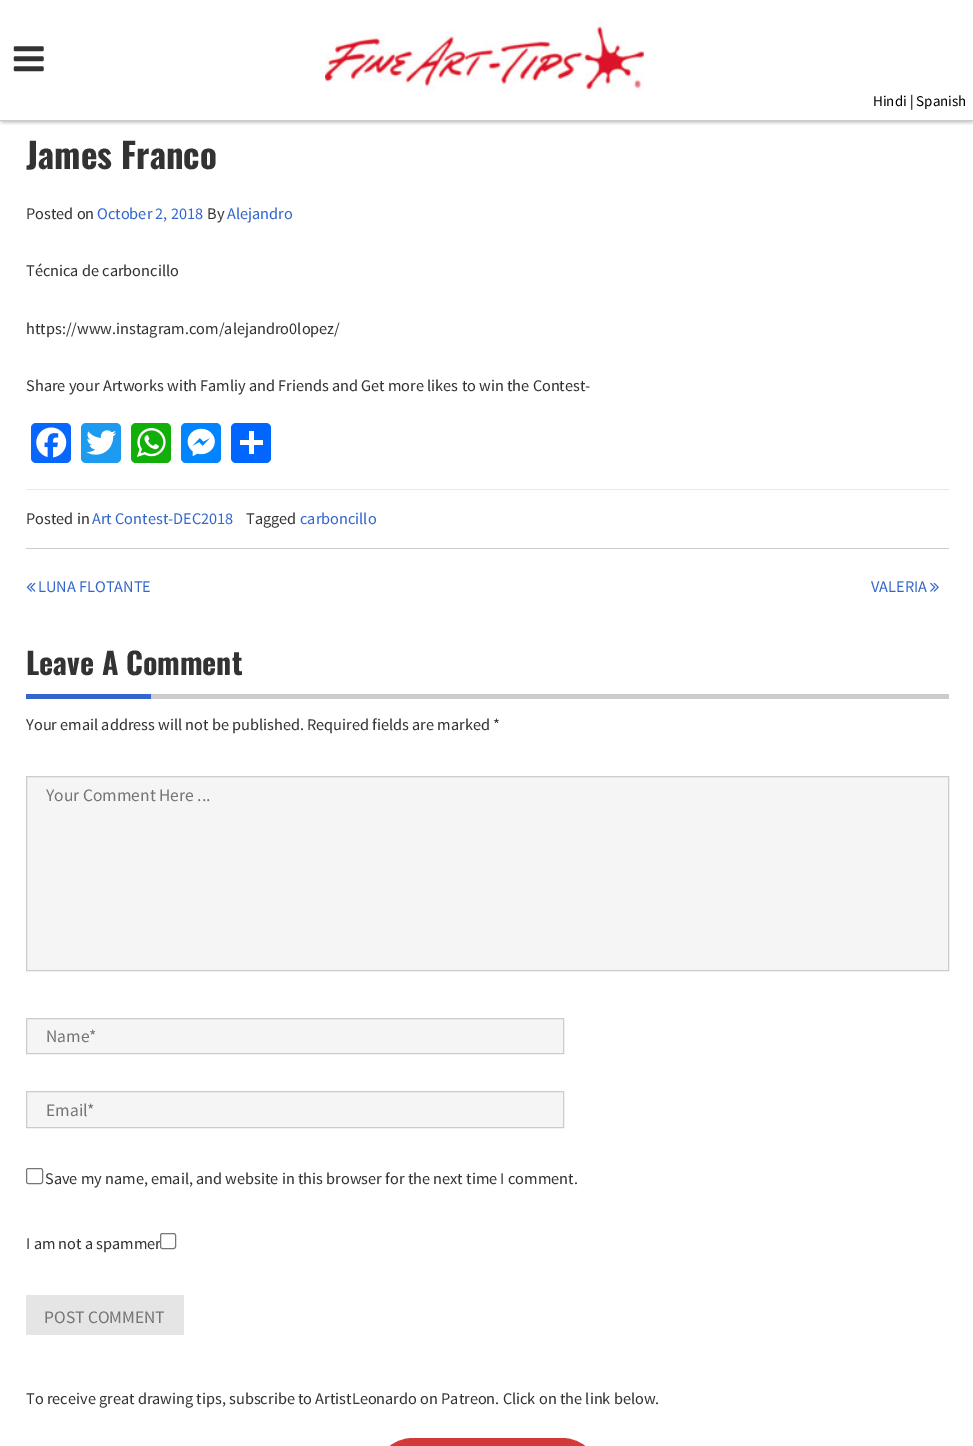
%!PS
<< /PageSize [973 1446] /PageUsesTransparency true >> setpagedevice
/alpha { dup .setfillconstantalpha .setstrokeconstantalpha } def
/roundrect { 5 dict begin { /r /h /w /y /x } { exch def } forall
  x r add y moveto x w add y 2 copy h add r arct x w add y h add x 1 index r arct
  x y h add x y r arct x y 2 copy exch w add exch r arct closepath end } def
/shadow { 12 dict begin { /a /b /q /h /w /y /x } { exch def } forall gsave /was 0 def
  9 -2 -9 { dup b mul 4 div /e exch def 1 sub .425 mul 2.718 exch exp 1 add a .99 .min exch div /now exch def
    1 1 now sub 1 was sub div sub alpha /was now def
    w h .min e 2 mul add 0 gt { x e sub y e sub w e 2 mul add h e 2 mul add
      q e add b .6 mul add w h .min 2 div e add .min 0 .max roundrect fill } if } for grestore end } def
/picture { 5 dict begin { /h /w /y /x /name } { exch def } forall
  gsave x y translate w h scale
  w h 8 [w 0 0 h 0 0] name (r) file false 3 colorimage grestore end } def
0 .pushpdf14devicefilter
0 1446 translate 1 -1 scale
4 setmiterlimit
1 setgray
0 0 973 1446 rectfill
gsave
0 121 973 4 rectclip
0 setgray
3 3 968 116 0 3 1 shadow
grestore
0.8 setgray
0 120 973 1 rectfill
(img1.rgb) 13 46 31 26 picture
(img2.rgb) 325 21 319 70 picture
/SourceSansPro-Regular [15 0 0 -15 0 0] selectfont
0 setgray
873 106 moveto (Hindi | Spanish) show
/Oswald-Bold [35 0 0 -35 0 0] selectfont
0.2 setgray
26 169 moveto (James Franco) show
/SourceSansPro-Regular [16.25 0 0 -16.25 0 0] selectfont
26 219 moveto (Posted on) show
0.2 0.4 0.8 setrgbcolor
97 219 moveto (October 2, 2018) show
0.2 setgray
207 219 moveto (By) show
0.2 0.4 0.8 setrgbcolor
227 219 moveto (Alejandro) show
0.2 setgray
26 276 moveto (Técnica de carboncillo) show
26 334 moveto (https://www.instagram.com/alejandro0lopez/) show
26 391 moveto (Share your Artworks with Famliy and Friends and Get more likes to win the Contest-) show
0.031 0.4 1 setrgbcolor
31 423 40 40 5 roundrect fill
(img3.rgb) 36 427 31 31 picture
0.114 0.608 0.941 setrgbcolor
81 423 40 40 5 roundrect fill
(img4.rgb) 86 430 31 25 picture
0.071 0.686 0.039 setrgbcolor
131 423 40 40 5 roundrect fill
(img5.rgb) 137 428 29 29 picture
0 0.518 1 setrgbcolor
181 423 40 40 5 roundrect fill
(img6.rgb) 187 428 28 29 picture
0.004 0.4 1 setrgbcolor
231 423 40 40 5 roundrect fill
1 setgray
249 431 5 23 rectfill
240 440 23 5 rectfill
0.914 setgray
26 489 923 1 rectfill
0.2 setgray
26 524 moveto (Posted in) show
0.2 0.4 0.8 setrgbcolor
92 524 moveto (Art Contest-DEC2018) show
0.2 setgray
246 524 moveto (Tagged) show
0.2 0.4 0.8 setrgbcolor
300 524 moveto (carboncillo) show
0.8 setgray
26 548 923 1 rectfill
(img7.rgb) 26 582 10 10 picture
0.2 0.4 0.8 setrgbcolor
38 592 moveto (LUNA FLOTANTE) show
871 592 moveto (VALERIA) show
(img8.rgb) 930 582 9 10 picture
0.8 setgray
151 694 798 5 rectfill
/Oswald-Bold [30 0 0 -30 0 0] selectfont
0.2 setgray
26 675 moveto (Leave A Comment) show
0.2 0.4 0.8 setrgbcolor
26 694 125 5 rectfill
/SourceSansPro-Regular [16.25 0 0 -16.25 0 0] selectfont
0.2 setgray
26 730 moveto (Your email address will not be published. Required fields are marked *) show
0.961 setgray
newpath 26.5 776.5 moveto 948.5 776.5 lineto 948.5 970.5 lineto 26.5 970.5 lineto closepath gsave fill grestore
0.8 setgray
stroke
/SourceSansPro-Regular [17.5 0 0 -17.5 0 0] selectfont
0.459 setgray
46 801 moveto (Your Comment Here ...) show
0.961 setgray
newpath 26.5 1018.5 moveto 563.5 1018.5 lineto 563.5 1053.5 lineto 26.5 1053.5 lineto closepath gsave fill grestore
0.8 setgray
stroke
0.459 setgray
46 1042 moveto (Name*) show
0.961 setgray
newpath 26.5 1091.5 moveto 563.5 1091.5 lineto 563.5 1127.5 lineto 26.5 1127.5 lineto closepath gsave fill grestore
0.8 setgray
stroke
0.459 setgray
46 1116 moveto (Email*) show
0.463 setgray
26.5 1168.5 16 15 2 roundrect stroke
/SourceSansPro-Regular [16.25 0 0 -16.25 0 0] selectfont
0.2 setgray
45 1184 moveto (Save my name, email, and website in this browser for the next time I comment.) show
26 1249 moveto (I am not a spammer) show
1 setgray
160.5 1233.5 15 15 2 roundrect gsave fill grestore
0.463 setgray
stroke
0.898 setgray
26 1295 158 40 rectfill
/SourceSansPro-Regular [17.5 0 0 -17.5 0 0] selectfont
0.459 setgray
44 1323 moveto (POST COMMENT) show
/SourceSansPro-Regular [16.25 0 0 -16.25 0 0] selectfont
0.2 setgray
26 1404 moveto (To receive great drawing tips, subscribe to ArtistLeonardo on Patreon. Click on the link below.) show
0.824 0.224 0.224 setrgbcolor
376.5 1439.5 222 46 36.5 roundrect gsave fill grestore
3 setlinewidth
stroke
.poppdf14devicefilter showpage
